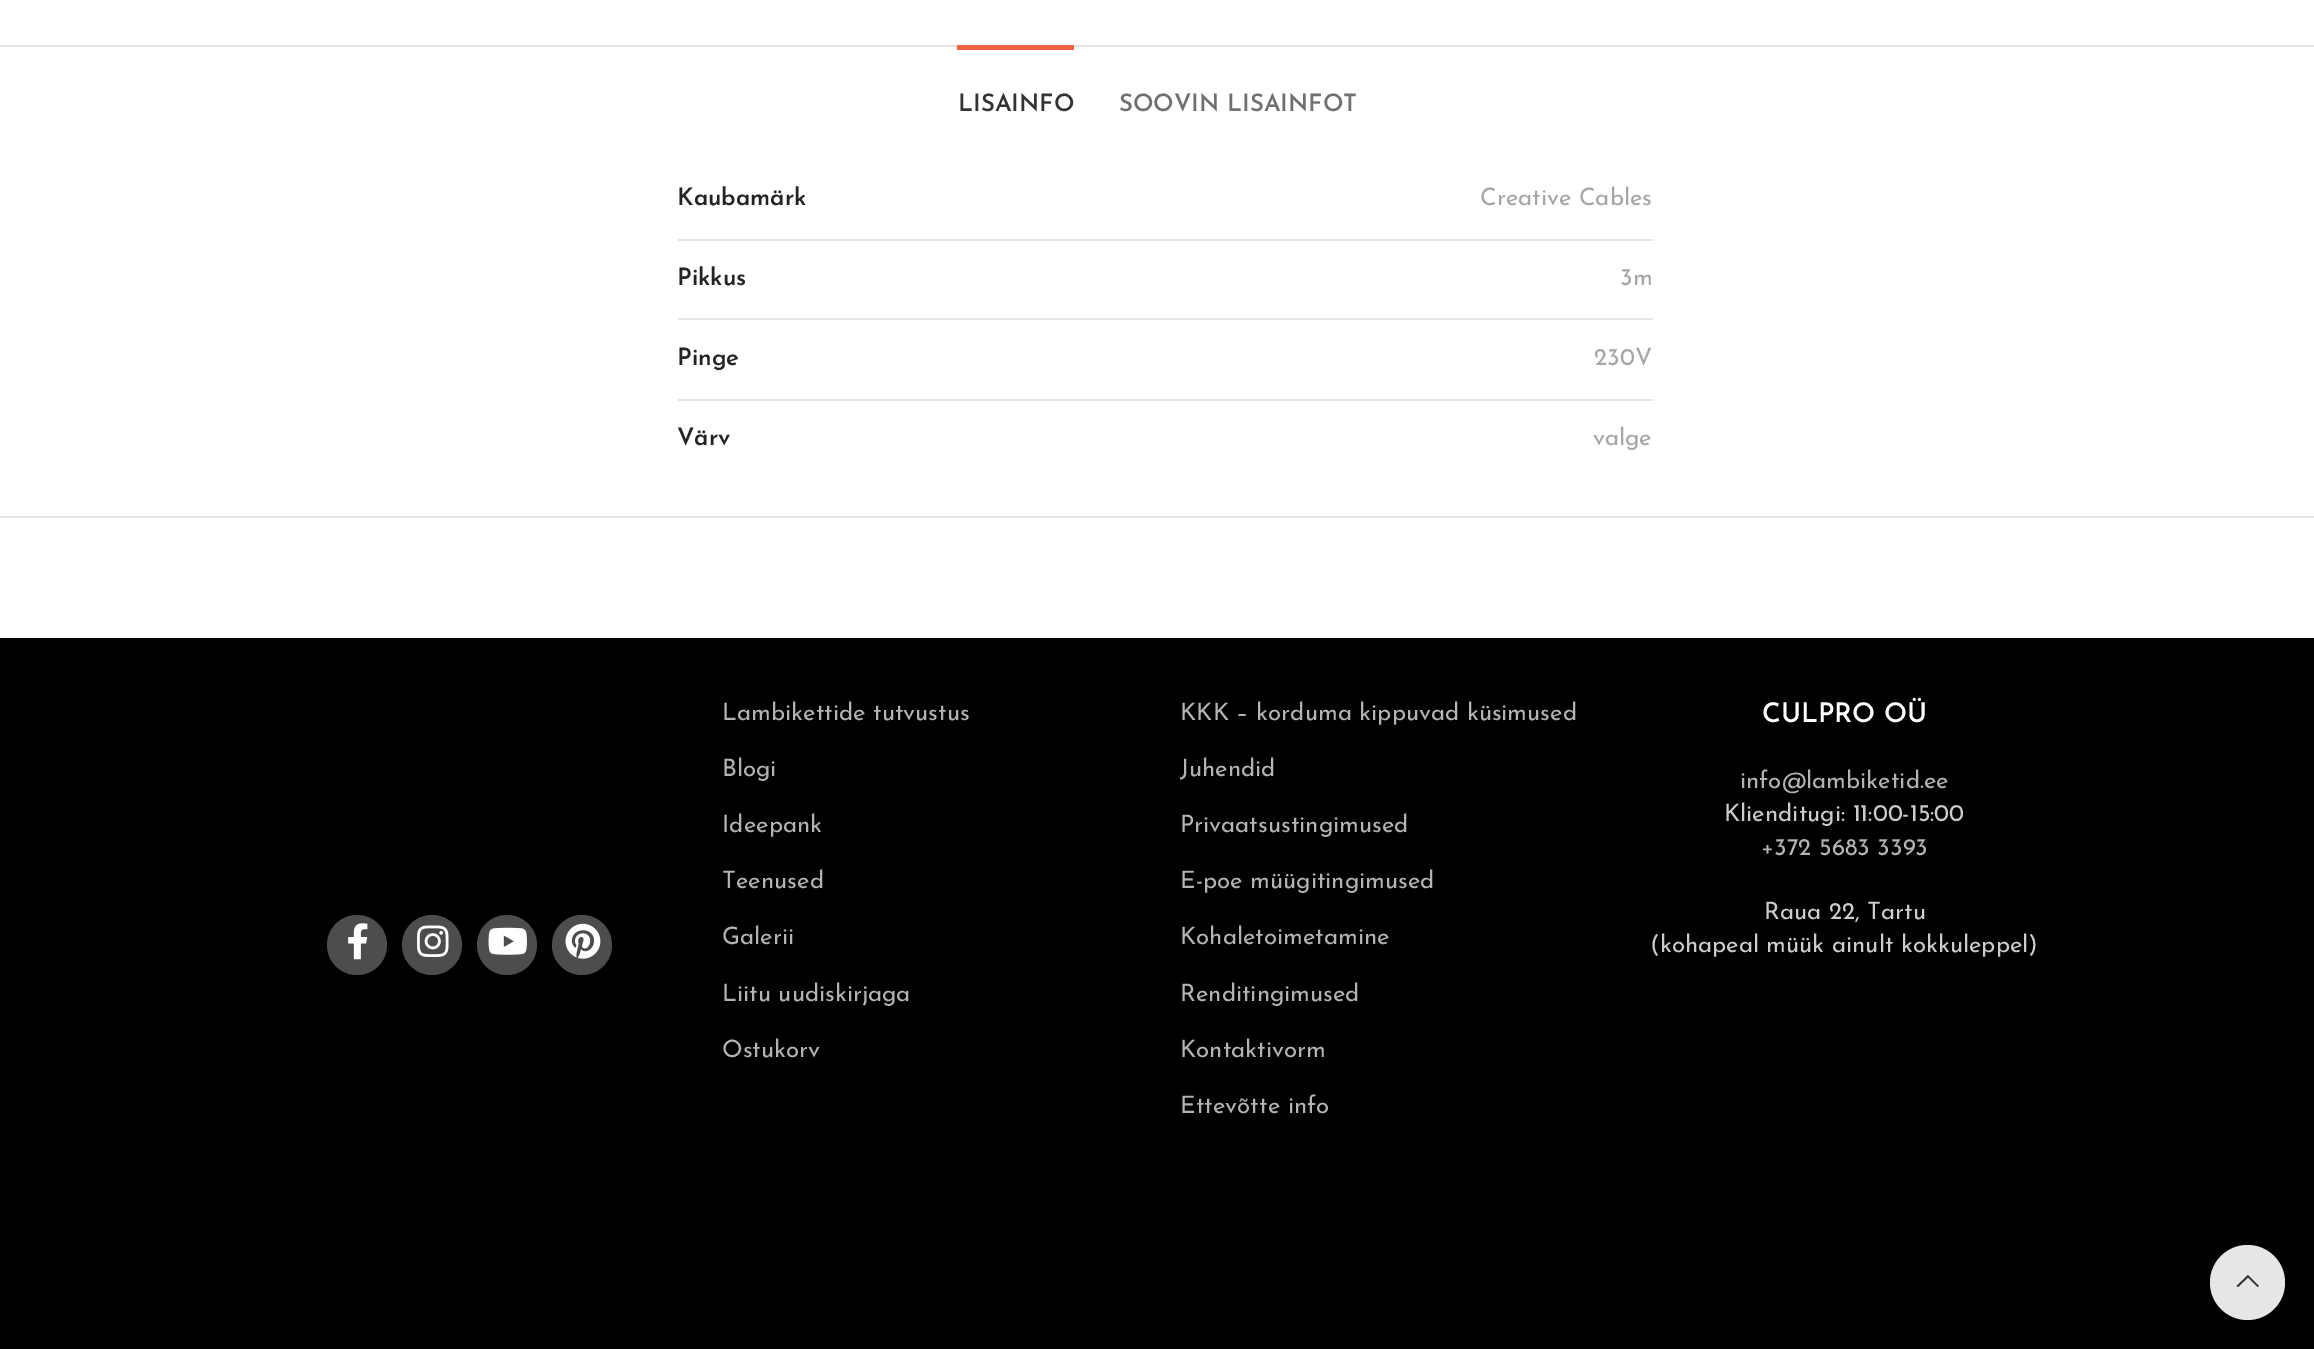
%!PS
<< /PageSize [2314 1349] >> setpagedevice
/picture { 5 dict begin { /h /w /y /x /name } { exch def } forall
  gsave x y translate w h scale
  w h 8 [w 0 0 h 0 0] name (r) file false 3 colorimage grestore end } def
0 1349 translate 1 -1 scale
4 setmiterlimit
1 setgray
0 0 2314 1349 rectfill
0.894 setgray
0 45 2314 2 rectfill
0 516 2314 2 rectfill
0.933 0.392 0.263 setrgbcolor
957 45 117 5 rectfill
/JosefinSans-SemiBold [24 0 0 -24 0 0] selectfont
0.2 setgray
958 111 moveto (LISAINFO) show
0.439 setgray
1119 111 moveto (SOOVIN LISAINFOT) show
0.894 setgray
678 239 975 2 rectfill
0.141 setgray
677 205 moveto (Kaubamärk) show
/JosefinSans-Regular [24 0 0 -24 0 0] selectfont
0.647 setgray
1480 205 moveto (Creative Cables) show
0.894 setgray
678 318 975 2 rectfill
/JosefinSans-SemiBold [24 0 0 -24 0 0] selectfont
0.141 setgray
677 285 moveto (Pikkus) show
/JosefinSans-Regular [24 0 0 -24 0 0] selectfont
0.647 setgray
1620 285 moveto (3m) show
0.894 setgray
678 399 975 2 rectfill
/JosefinSans-SemiBold [24 0 0 -24 0 0] selectfont
0.141 setgray
677 365 moveto (Pinge) show
/JosefinSans-Regular [24 0 0 -24 0 0] selectfont
0.647 setgray
1594 365 moveto (230V) show
/JosefinSans-SemiBold [24 0 0 -24 0 0] selectfont
0.141 setgray
677 445 moveto (Värv) show
/JosefinSans-Regular [24 0 0 -24 0 0] selectfont
0.647 setgray
1593 445 moveto (valge) show
0 setgray
0 638 2314 711 rectfill
0.302 setgray
newpath 357 945 30 0 360 arc closepath fill
(img1.rgb) 348 923 20 37 picture
newpath 432 945 30 0 360 arc closepath fill
(img2.rgb) 417 925 32 32 picture
newpath 507 945 30 0 360 arc closepath fill
(img3.rgb) 488 927 39 28 picture
newpath 582 945 30 0 360 arc closepath fill
(img4.rgb) 565 923 36 36 picture
0.702 setgray
722 720 moveto (Lambikettide tutvustus) show
722 776 moveto (Blogi) show
722 832 moveto (Ideepank) show
722 888 moveto (Teenused) show
722 944 moveto (Galerii) show
722 1001 moveto (Liitu uudiskirjaga) show
722 1057 moveto (Ostukorv) show
1180 720 moveto (KKK – korduma kippuvad küsimused) show
1180 776 moveto (Juhendid) show
1180 832 moveto (Privaatsustingimused) show
1180 888 moveto (E-poe müügitingimused) show
1180 944 moveto (Kohaletoimetamine) show
1180 1001 moveto (Renditingimused) show
1180 1057 moveto (Kontaktivorm) show
1180 1113 moveto (Ettevõtte info) show
/JosefinSans-SemiBold [27 0 0 -27 0 0] selectfont
1 setgray
1762 722 moveto (CULPRO OÜ) show
/JosefinSans-Regular [24 0 0 -24 0 0] selectfont
0.702 setgray
1740 788 moveto (info@lambiketid.ee) show
0.8 setgray
1724 821 moveto (Klienditugi: 11:00-15:00) show
0.702 setgray
1761 855 moveto (+372 5683 3393) show
0.8 setgray
1764 919 moveto (Raua 22, Tartu) show
1650 952 moveto (\(kohapeal müük ainult kokkuleppel\)) show
0.902 setgray
newpath 2247.5 1282.5 37.5 0 360 arc closepath fill
0.2 setgray
newpath 2257.5 1287 moveto 2259 1286 lineto 2248 1275 lineto 2236.5 1286 lineto 2238 1287 lineto 2248 1277.5 lineto closepath fill
showpage
